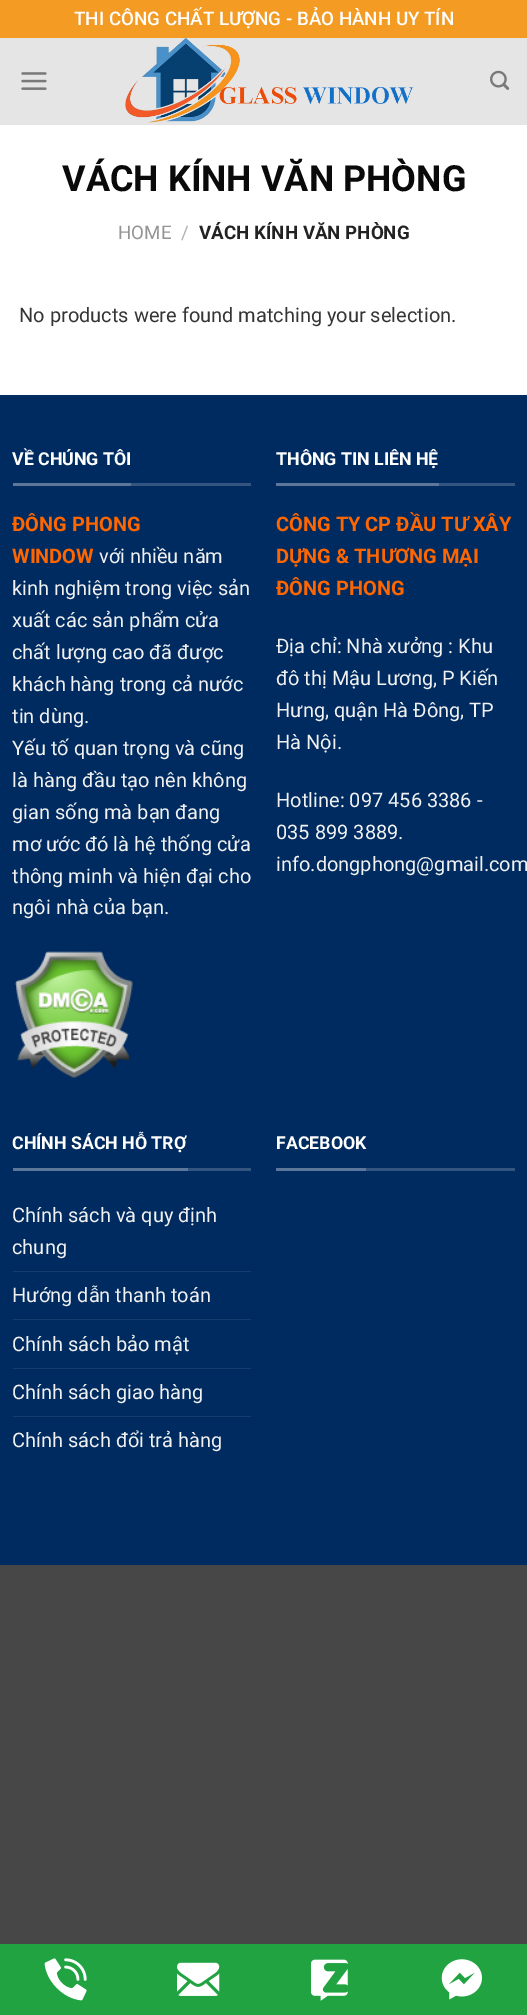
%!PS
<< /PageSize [527 2015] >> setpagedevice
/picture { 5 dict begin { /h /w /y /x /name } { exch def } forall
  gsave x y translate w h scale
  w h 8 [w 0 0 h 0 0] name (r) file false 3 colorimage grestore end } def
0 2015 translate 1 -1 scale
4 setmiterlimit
0.278 setgray
0 0 527 2015 rectfill
1 setgray
0 125 527 270 rectfill
0.953 0.608 0.133 setrgbcolor
0 0 527 38 rectfill
/Roboto-Medium [18.75 0 0 -18.75 0 0] selectfont
1 setgray
74 25 moveto (THI CÔNG CHẤT LƯỢNG - BẢO HÀNH UY TÍN) show
0.898 setgray
0 38 527 87 rectfill
(img1.rgb) 21 72 26 18 picture
(img2.rgb) 125 38 289 85 picture
(img3.rgb) 490 70 20 20 picture
/Roboto-Bold [36 0 0 -36 0 0] selectfont
0.039 setgray
62 191 moveto (VÁCH KÍNH VĂN PHÒNG) show
/Roboto-Regular [18.75 0 0 -18.75 0 0] selectfont
0.58 setgray
118 239 moveto (HOME) show
0.698 setgray
181 239 moveto (/) show
/Roboto-Bold [18.75 0 0 -18.75 0 0] selectfont
0.133 setgray
199 239 moveto (VÁCH KÍNH VĂN PHÒNG) show
/Roboto-Regular [20 0 0 -20 0 0] selectfont
0.208 setgray
19 322 moveto (No products were found matching your selection.) show
0 0.169 0.376 setrgbcolor
0 395 527 1170 rectfill
0.2 0.333 0.502 setrgbcolor
131 483 120 3 rectfill
0.361 0.467 0.6 setrgbcolor
13 483 118 3 rectfill
/Roboto-Bold [17.75 0 0 -17.75 0 0] selectfont
1 setgray
12 465 moveto (VỀ CHÚNG TÔI) show
/Roboto-Bold [20 0 0 -20 0 0] selectfont
1 0.4 0 setrgbcolor
12 531 moveto (ĐÔNG PHONG) show
12 563 moveto (WINDOW) show
/Roboto-Regular [20 0 0 -20 0 0] selectfont
0.945 setgray
99 563 moveto (với nhiều năm) show
12 595 moveto (kinh nghiệm trong việc sản) show
12 627 moveto (xuất các sản phẩm cửa) show
12 659 moveto (chất lượng cao đã được) show
12 691 moveto (khách hàng trong cả nước) show
12 723 moveto (tin dùng.) show
12 755 moveto (Yếu tố quan trọng và cũng) show
12 787 moveto (là hàng đầu tạo nên không) show
12 819 moveto (gian sống mà bạn đang) show
12 851 moveto (mơ ước đó là hệ thống cửa) show
12 883 moveto (thông minh và hiện đại cho) show
12 914 moveto (ngôi nhà của bạn.) show
(img4.rgb) 15 951 118 127 picture
0.2 0.333 0.502 setrgbcolor
439 483 76 3 rectfill
0.361 0.467 0.6 setrgbcolor
276 483 163 3 rectfill
/Roboto-Bold [17.75 0 0 -17.75 0 0] selectfont
1 setgray
276 465 moveto (THÔNG TIN LIÊN HỆ) show
/Roboto-Bold [20 0 0 -20 0 0] selectfont
1 0.4 0 setrgbcolor
276 531 moveto (CÔNG TY CP ĐẦU TƯ XÂY) show
276 563 moveto (DỰNG & THƯƠNG MẠI) show
276 595 moveto (ĐÔNG PHONG) show
/Roboto-Regular [20 0 0 -20 0 0] selectfont
0.945 setgray
276 653 moveto (Địa chỉ: Nhà xưởng : Khu) show
276 685 moveto (đô thị Mậu Lương, P Kiến) show
276 717 moveto (Hưng, quận Hà Đông, TP) show
276 749 moveto (Hà Nội.) show
276 807 moveto (Hotline: 097 456 3386 -) show
276 839 moveto (035 899 3889.) show
276 871 moveto (info.dongphong@gmail.com) show
0.2 0.333 0.502 setrgbcolor
188 1168 63 3 rectfill
0.361 0.467 0.6 setrgbcolor
13 1168 175 3 rectfill
/Roboto-Bold [17.75 0 0 -17.75 0 0] selectfont
1 setgray
12 1149 moveto (CHÍNH SÁCH HỖ TRỢ) show
/Roboto-Regular [20 0 0 -20 0 0] selectfont
0.945 setgray
12 1222 moveto (Chính sách và quy định) show
12 1254 moveto (chung) show
0.078 0.235 0.427 setrgbcolor
13 1271 238 1 rectfill
0.945 setgray
12 1302 moveto (Hướng dẫn thanh toán) show
0.078 0.235 0.427 setrgbcolor
13 1319 238 1 rectfill
0.945 setgray
12 1351 moveto (Chính sách bảo mật) show
0.078 0.235 0.427 setrgbcolor
13 1368 238 1 rectfill
0.945 setgray
12 1399 moveto (Chính sách giao hàng) show
0.078 0.235 0.427 setrgbcolor
13 1416 238 1 rectfill
0.945 setgray
12 1447 moveto (Chính sách đổi trả hàng) show
0.2 0.333 0.502 setrgbcolor
366 1168 149 3 rectfill
0.361 0.467 0.6 setrgbcolor
276 1168 90 3 rectfill
/Roboto-Bold [17.75 0 0 -17.75 0 0] selectfont
1 setgray
276 1149 moveto (FACEBOOK) show
0.129 0.639 0.259 setrgbcolor
0 1944 527 71 rectfill
(img5.rgb) 44 1958 43 43 picture
(img6.rgb) 177 1962 43 34 picture
(img7.rgb) 311 1959 37 42 picture
(img8.rgb) 441 1959 41 41 picture
showpage
